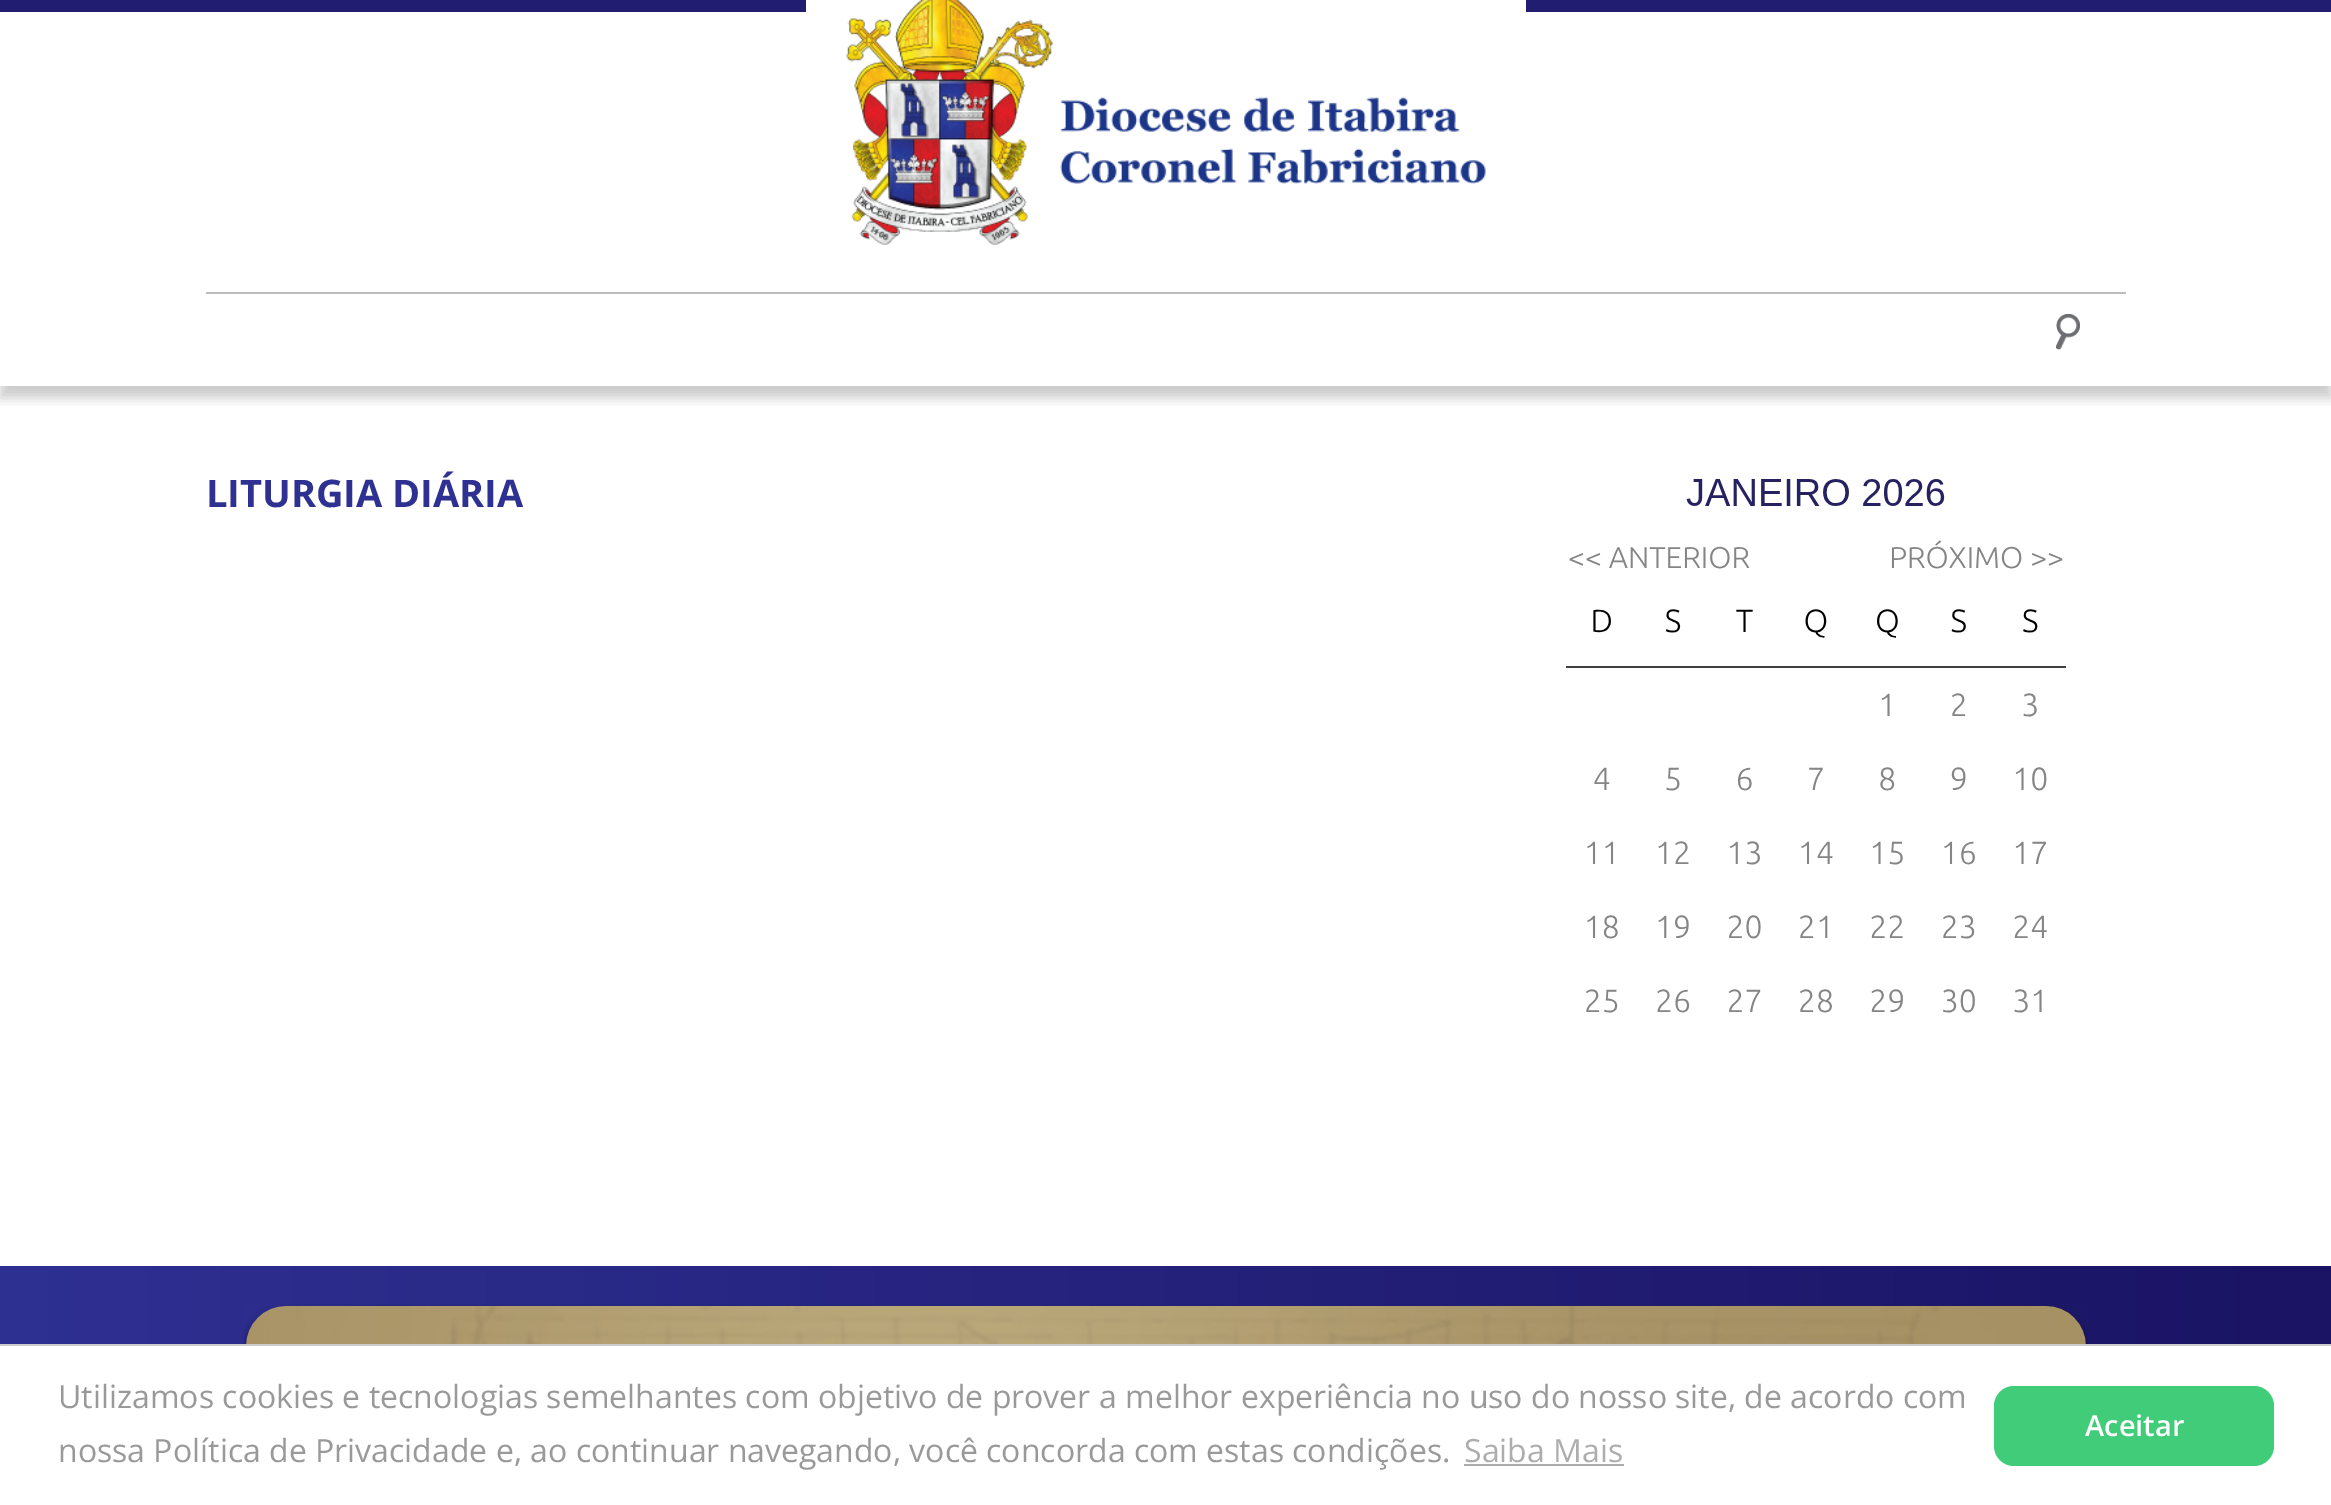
%!PS
<< /PageSize [2331 1505] /PageUsesTransparency true >> setpagedevice
/alpha { dup .setfillconstantalpha .setstrokeconstantalpha } def
/roundrect { 5 dict begin { /r /h /w /y /x } { exch def } forall
  x r add y moveto x w add y 2 copy h add r arct x w add y h add x 1 index r arct
  x y h add x y r arct x y 2 copy exch w add exch r arct closepath end } def
/shadow { 12 dict begin { /a /b /q /h /w /y /x } { exch def } forall gsave /was 0 def
  9 -2 -9 { dup b mul 4 div /e exch def 1 sub .425 mul 2.718 exch exp 1 add a .99 .min exch div /now exch def
    1 1 now sub 1 was sub div sub alpha /was now def
    w h .min e 2 mul add 0 gt { x e sub y e sub w e 2 mul add h e 2 mul add
      q e add b .6 mul add w h .min 2 div e add .min 0 .max roundrect fill } if } for grestore end } def
/picture { 5 dict begin { /h /w /y /x /name } { exch def } forall
  gsave x y translate w h scale
  w h 8 [w 0 0 h 0 0] name (r) file false 3 colorimage grestore end } def
0 .pushpdf14devicefilter
0 1505 translate 1 -1 scale
4 setmiterlimit
1 setgray
0 0 2331 1505 rectfill
gsave
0 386 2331 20 rectclip
0 setgray
0 -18 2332 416 0 6 0.2 shadow
grestore
0.129 0.114 0.439 setrgbcolor
0 0 2331 12 rectfill
1 setgray
806 -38 720 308 40 roundrect fill
(img1.rgb) 846 0 640 245 picture
0.733 0.741 0.753 setrgbcolor
206 292 1920 2 rectfill
(img2.rgb) 2056 314 24 36 picture
/OpenSans-Bold [38 0 0 -38 0 0] selectfont
0.18 0.188 0.573 setrgbcolor
206 507 moveto (LITURGIA DIÁRIA) show
(img3.rgb) 1566 479 500 534 picture
gsave newpath 0 1266 moveto 2331 1266 lineto 2331 1344 lineto 0 1344 lineto closepath clip newpath
<< /ShadingType 2 /ColorSpace /DeviceRGB /Coords [0 1435 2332 1435] /Extend [true true] /Function << /FunctionType 2 /Domain [0 1] /C0 [0.18 0.188 0.573] /C1 [0.106 0.078 0.392] /N 1 >> >> shfill grestore
(img4.rgb) 244 1304 1844 40 picture
0.8 setgray
0 1344 2331 2 rectfill
/OpenSans-Regular [32 0 0 -32 0 0] selectfont
0.6 setgray
58 1408 moveto (Utilizamos cookies e tecnologias semelhantes com objetivo de prover a melhor experiência no uso do nosso site, de acordo com) show
58 1462 moveto (nossa Política de Privacidade e, ao continuar navegando, você concorda com estas condições.) show
0.678 setgray
1464 1462 moveto (Saiba Mais) show
1464 1464 160 2 rectfill
0.251 0.8 0.475 setrgbcolor
1994 1386 280 80 20 roundrect fill
/OpenSans-SemiBold [29 0 0 -29 0 0] selectfont
1 setgray
2085 1436 moveto (Aceitar) show
.poppdf14devicefilter showpage
